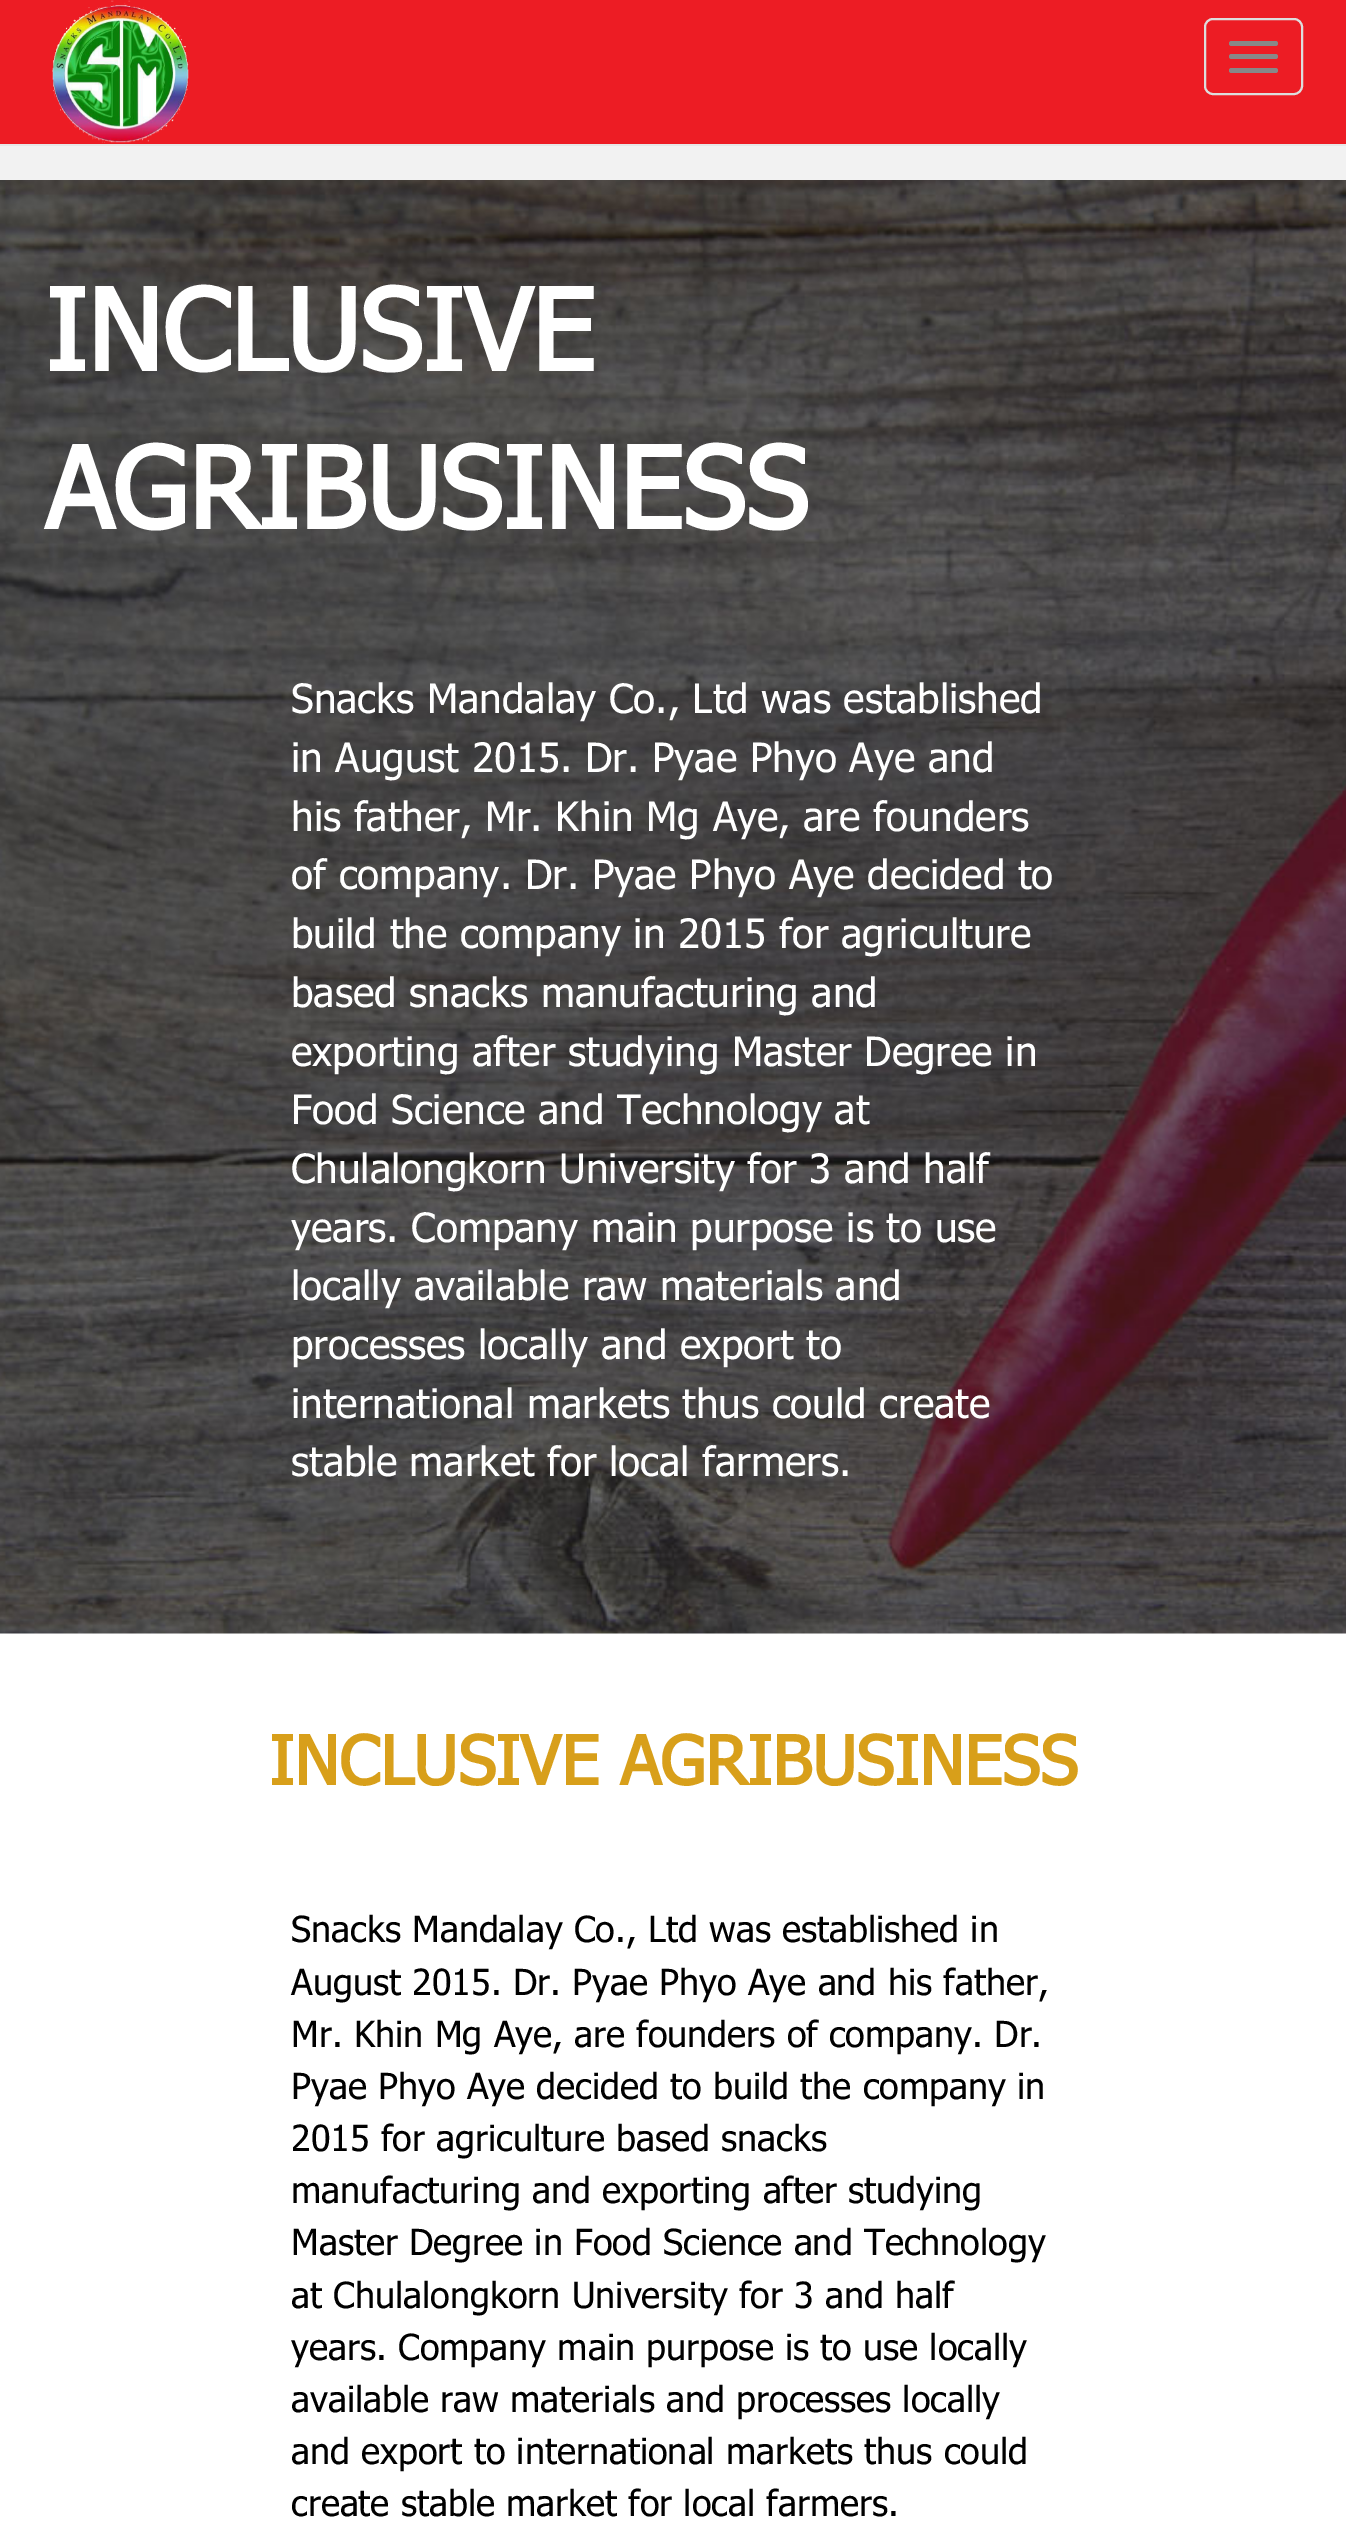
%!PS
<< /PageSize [1346 2546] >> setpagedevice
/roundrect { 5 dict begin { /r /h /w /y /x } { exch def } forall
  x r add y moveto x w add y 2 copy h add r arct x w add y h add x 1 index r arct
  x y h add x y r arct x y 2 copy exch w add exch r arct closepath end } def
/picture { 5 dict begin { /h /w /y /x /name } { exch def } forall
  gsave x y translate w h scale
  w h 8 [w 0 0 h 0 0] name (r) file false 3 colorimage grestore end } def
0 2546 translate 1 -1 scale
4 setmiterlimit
0.949 setgray
0 0 1346 2546 rectfill
0.929 0.11 0.141 setrgbcolor
0 0 1346 144 rectfill
0.906 setgray
0 144 1346 2 rectfill
(img1.rgb) 52 0 137 143 picture
0.867 setgray
2 setlinewidth
1205 19 97 75 8 roundrect stroke
0.533 setgray
1229 41 49 5 2.5 roundrect fill
1229 54 49 5 2.5 roundrect fill
1229 68 49 5 2.5 roundrect fill
1 setgray
0 1633 1346 913 rectfill
(img2.rgb) 0 180 1346 1454 picture
/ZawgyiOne-Bold [112.5 0 0 -112.5 0 0] selectfont
45 371 moveto (INCLUSIVE) show
45 529 moveto (AGRIBUSINESS) show
/ZawgyiOne-Regular [40.5 0 0 -40.5 0 0] selectfont
291 713 moveto (Snacks Mandalay Co., Ltd was established) show
291 772 moveto (in August 2015. Dr. Pyae Phyo Aye and) show
291 831 moveto (his father, Mr. Khin Mg Aye, are founders) show
291 889 moveto (of company. Dr. Pyae Phyo Aye decided to) show
291 948 moveto (build the company in 2015 for agriculture) show
291 1007 moveto (based snacks manufacturing and) show
291 1066 moveto (exporting after studying Master Degree in) show
291 1124 moveto (Food Science and Technology at) show
291 1183 moveto (Chulalongkorn University for 3 and half) show
291 1242 moveto (years. Company main purpose is to use) show
291 1300 moveto (locally available raw materials and) show
291 1359 moveto (processes locally and export to) show
291 1418 moveto (international markets thus could create) show
291 1476 moveto (stable market for local farmers.) show
/ZawgyiOne-Bold [67.5 0 0 -67.5 0 0] selectfont
0.847 0.624 0.102 setrgbcolor
269 1785 moveto (INCLUSIVE AGRIBUSINESS) show
/ZawgyiOne-Regular [36 0 0 -36 0 0] selectfont
0 setgray
291 1942 moveto (Snacks Mandalay Co., Ltd was established in) show
291 1995 moveto (August 2015. Dr. Pyae Phyo Aye and his father,) show
291 2047 moveto (Mr. Khin Mg Aye, are founders of company. Dr.) show
291 2099 moveto (Pyae Phyo Aye decided to build the company in) show
291 2151 moveto (2015 for agriculture based snacks) show
291 2203 moveto (manufacturing and exporting after studying) show
291 2255 moveto (Master Degree in Food Science and Technology) show
291 2308 moveto (at Chulalongkorn University for 3 and half) show
291 2360 moveto (years. Company main purpose is to use locally) show
291 2412 moveto (available raw materials and processes locally) show
291 2464 moveto (and export to international markets thus could) show
291 2516 moveto (create stable market for local farmers.) show
showpage
